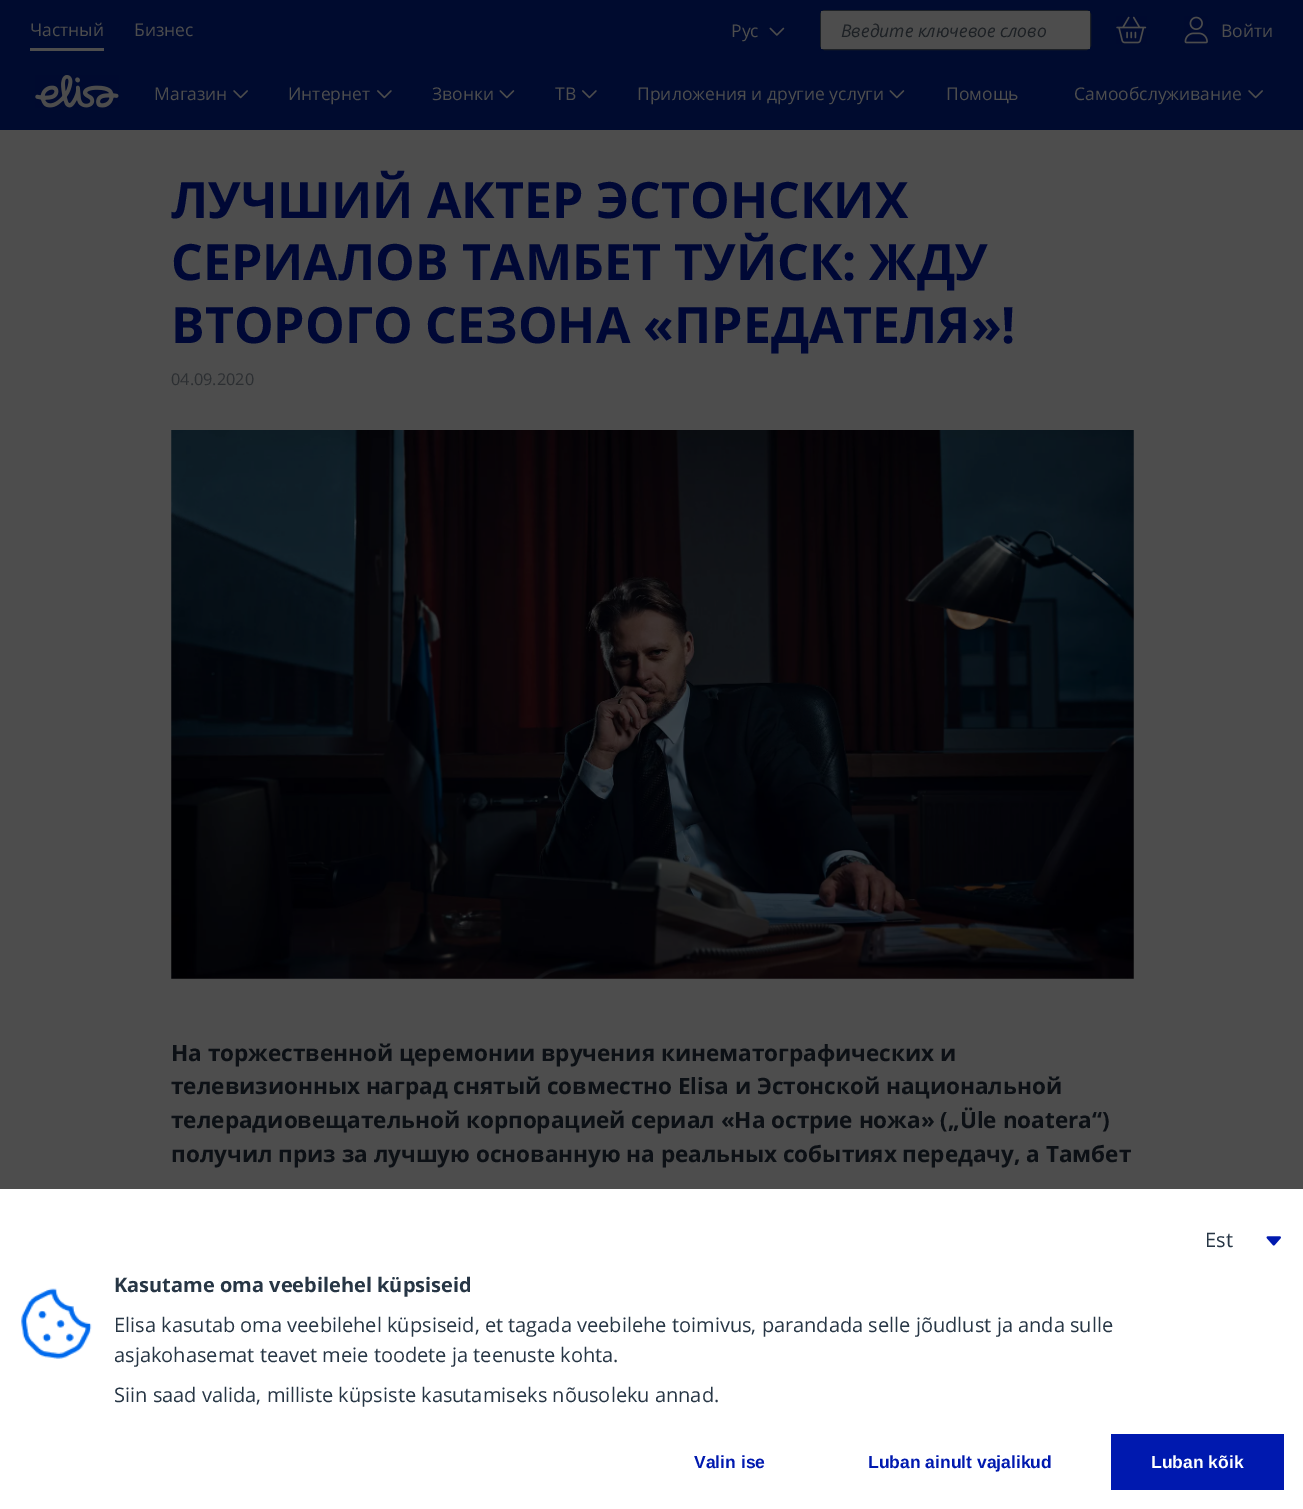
%!PS
<< /PageSize [1303 1509] >> setpagedevice
/roundrect { 5 dict begin { /r /h /w /y /x } { exch def } forall
  x r add y moveto x w add y 2 copy h add r arct x w add y h add x 1 index r arct
  x y h add x y r arct x y 2 copy exch w add exch r arct closepath end } def
/picture { 5 dict begin { /h /w /y /x /name } { exch def } forall
  gsave x y translate w h scale
  w h 8 [w 0 0 h 0 0] name (r) file false 3 colorimage grestore end } def
0 1509 translate 1 -1 scale
4 setmiterlimit
0.302 setgray
0 0 1303 1509 rectfill
0 0.043 0.184 setrgbcolor
0 0 1303 130 rectfill
0.302 setgray
30 48 74 3 rectfill
/OpenSans-Regular [17.5 0 0 -17.5 0 0] selectfont
30 36 moveto (Частный) show
134 36 moveto (Бизнес) show
731 37 moveto (Pyc) show
(img1.rgb) 769 27 16 9 picture
0.114 0.129 0.145 setrgbcolor
820.5 10.5 270 39 4.5 roundrect stroke
0.302 setgray
821 11 269 38 rectfill
/OpenSans-Italic [17.5 0 0 -17.5 0 0] selectfont
0.114 0.129 0.145 setrgbcolor
841 37 moveto (Введите ключевое слово) show
(img2.rgb) 1116 16 31 28 picture
(img3.rgb) 1184 16 24 28 picture
/OpenSans-Regular [17.5 0 0 -17.5 0 0] selectfont
0.302 setgray
1221 37 moveto (Войти) show
(img4.rgb) 35 75 84 33 picture
154 100 moveto (Магазин) show
(img5.rgb) 233 90 15 9 picture
288 100 moveto (Интернет) show
(img6.rgb) 377 90 15 9 picture
432 100 moveto (Звонки) show
(img7.rgb) 499 90 16 9 picture
555 100 moveto (ТВ) show
(img6.rgb) 582 90 15 9 picture
637 100 moveto (Приложения и другие услуги) show
(img7.rgb) 889 90 16 9 picture
946 100 moveto (Помощь) show
1074 100 moveto (Самообслуживание) show
(img5.rgb) 1248 90 15 9 picture
/OpenSans-Bold [50 0 0 -50 0 0] selectfont
0 0.031 0.208 setrgbcolor
171 218 moveto (ЛУЧШИЙ АКТЕР ЭСТОНСКИХ) show
171 280 moveto (СЕРИАЛОВ ТАМБЕТ ТУЙСК: ЖДУ) show
171 343 moveto (ВТОРОГО СЕЗОНА «ПРЕДАТЕЛЯ»!) show
/OpenSans-Regular [16.25 0 0 -16.25 0 0] selectfont
0.173 0.184 0.196 setrgbcolor
171 385 moveto (04.09.2020) show
(img8.rgb) 171 430 963 549 picture
/OpenSans-Bold [22.5 0 0 -22.5 0 0] selectfont
0.047 0.063 0.082 setrgbcolor
171 1061 moveto (На торжественной церемонии вручения кинематографических и) show
171 1094 moveto (телевизионных наград снятый совместно Elisa и Эстонской национальной) show
171 1128 moveto (телерадиовещательной корпорацией сериал «На острие ножа» \(„Üle noatera“\)) show
171 1162 moveto (получил приз за лучшую основанную на реальных событиях передачу, а Тамбет) show
1 setgray
0 1189 1303 320 rectfill
/OpenSans-Regular [20 0 0 -20 0 0] selectfont
0.153 0.212 0.271 setrgbcolor
1205 1247 moveto (Est) show
(img9.rgb) 1266 1236 15 10 picture
(img10.rgb) 21 1288 71 71 picture
/OpenSans-Bold [20 0 0 -20 0 0] selectfont
114 1292 moveto (Kasutame oma veebilehel küpsiseid) show
/OpenSans-Regular [20 0 0 -20 0 0] selectfont
114 1332 moveto (Elisa kasutab oma veebilehel küpsiseid, et tagada veebilehe toimivus, parandada selle jõudlust ja anda sulle) show
114 1362 moveto (asjakohasemat teavet meie toodete ja teenuste kohta.) show
114 1402 moveto (Siin saad valida, milliste küpsiste kasutamiseks nõusoleku annad.) show
/LiberationSans-Bold [17.5 0 0 -17.5 0 0] selectfont
0 0.098 0.686 setrgbcolor
694 1468 moveto (Valin ise) show
868 1468 moveto (Luban ainult vajalikud) show
1111 1434 173 56 rectfill
1 setgray
1151 1468 moveto (Luban kõik) show
showpage
